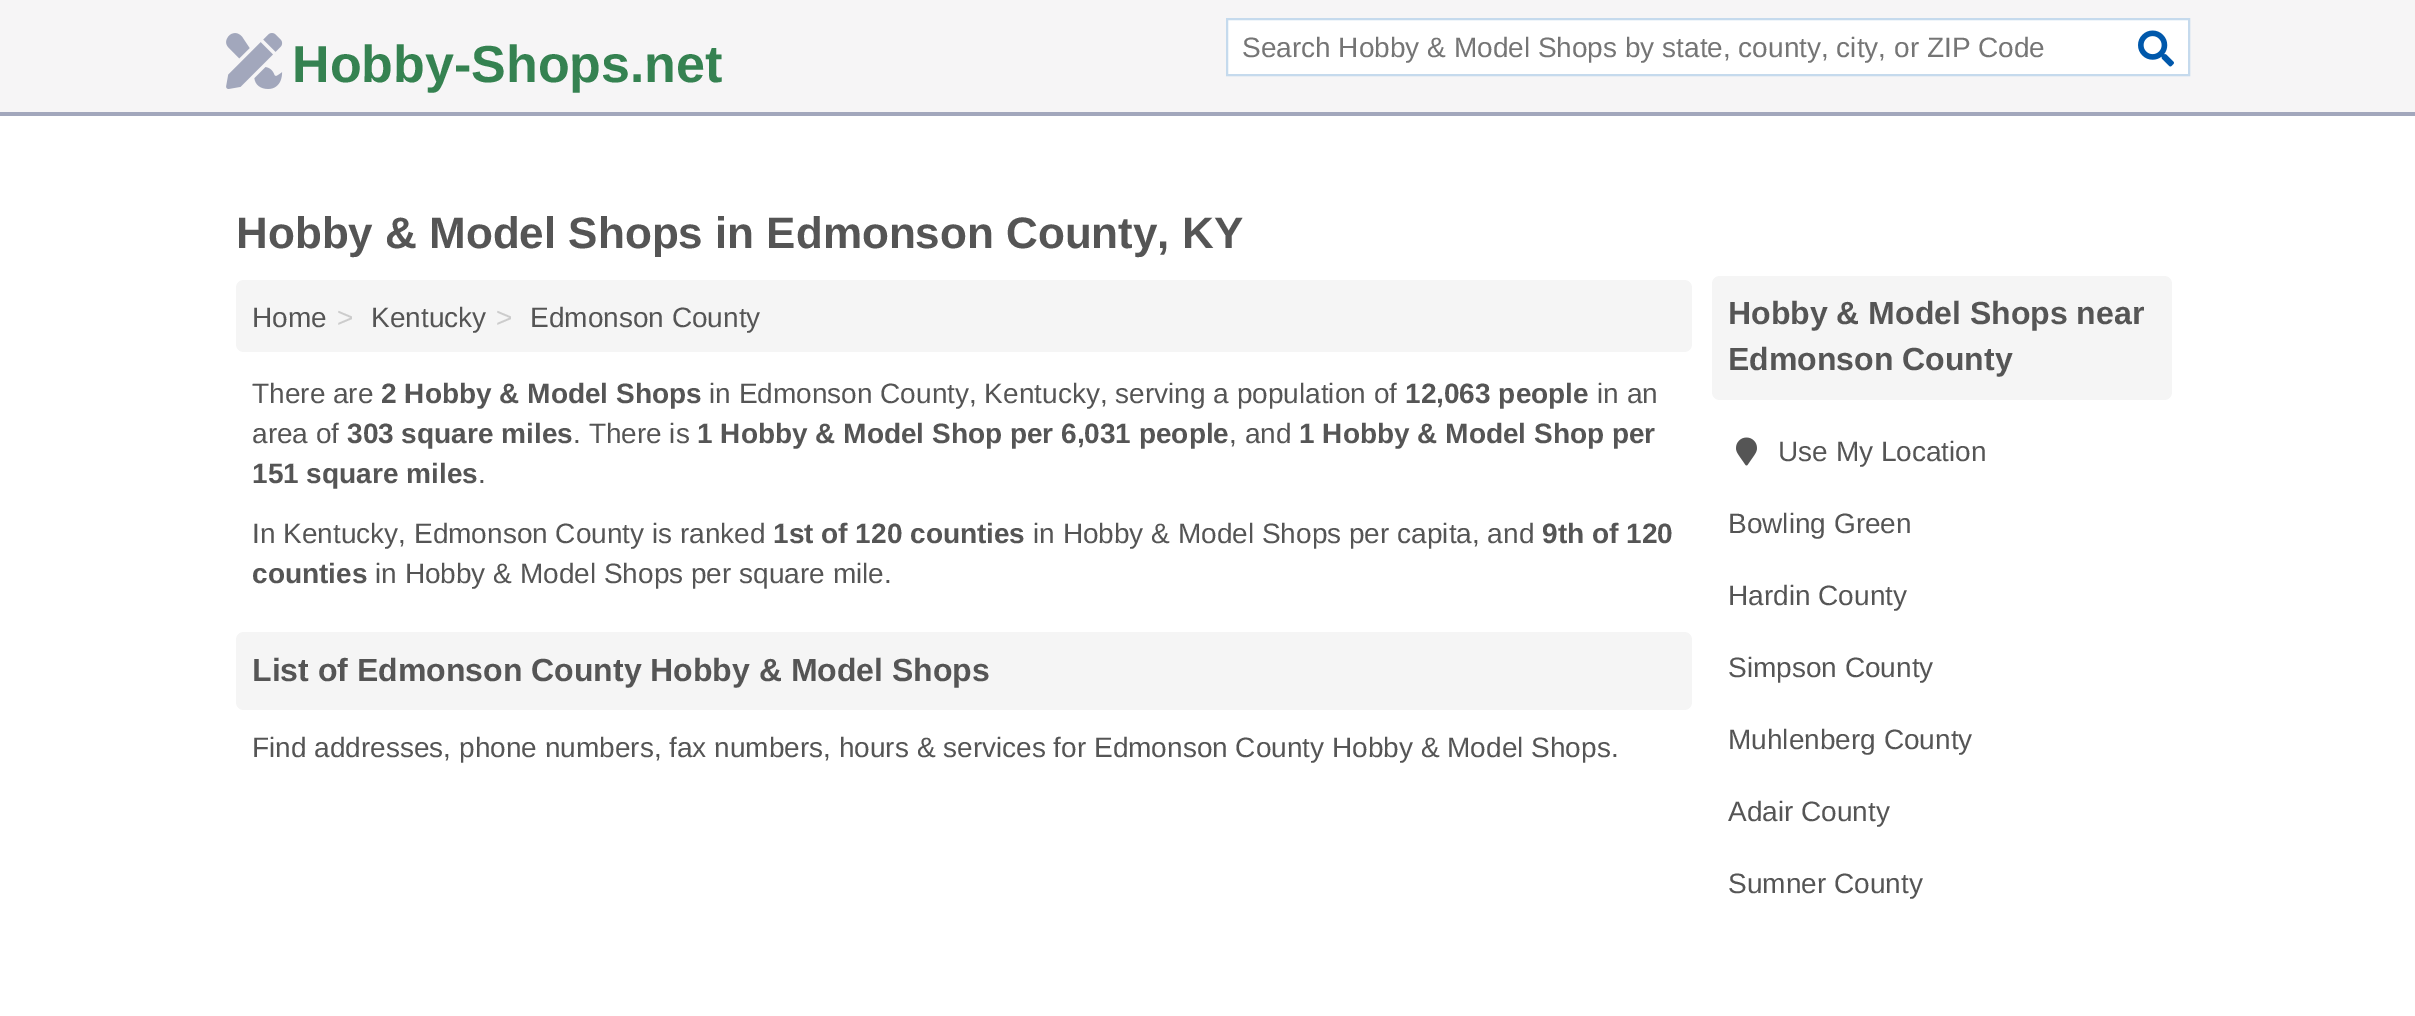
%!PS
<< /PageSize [2415 1016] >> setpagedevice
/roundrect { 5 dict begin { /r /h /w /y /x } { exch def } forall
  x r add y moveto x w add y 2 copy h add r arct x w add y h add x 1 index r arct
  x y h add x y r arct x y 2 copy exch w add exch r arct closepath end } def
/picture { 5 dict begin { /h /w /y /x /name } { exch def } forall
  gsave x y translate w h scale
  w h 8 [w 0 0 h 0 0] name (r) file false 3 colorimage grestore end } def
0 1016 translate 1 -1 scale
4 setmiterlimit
1 setgray
0 0 2415 1016 rectfill
0.965 0.961 0.965 setrgbcolor
0 0 2415 112 rectfill
0.635 0.655 0.737 setrgbcolor
0 112 2415 4 rectfill
(img1.rgb) 226 33 57 56 picture
/LiberationSans-Bold [52 0 0 -52 0 0] selectfont
0.208 0.51 0.318 setrgbcolor
292 82 moveto (Hobby-Shops.net) show
1 setgray
newpath 1227 19 moveto 2189 19 lineto 2189 75 lineto 1227 75 lineto closepath gsave fill grestore
0.773 0.855 0.929 setrgbcolor
2 setlinewidth
stroke
/LiberationSans-Regular [28 0 0 -28 0 0] selectfont
0.459 setgray
1242 57 moveto (Search Hobby & Model Shops by state, county, city, or ZIP Code) show
(img2.rgb) 2138 30 36 37 picture
/LiberationSans-Bold [44 0 0 -44 0 0] selectfont
0.333 setgray
236 248 moveto (Hobby & Model Shops in Edmonson County, KY) show
0.961 setgray
236 280 1456 72 8 roundrect fill
/LiberationSans-Regular [28 0 0 -28 0 0] selectfont
0.333 setgray
252 327 moveto (Home) show
0.8 setgray
337 327 moveto (>) show
0.333 setgray
371 327 moveto (Kentucky) show
0.8 setgray
496 327 moveto (>) show
0.333 setgray
530 327 moveto (Edmonson County) show
252 403 moveto (There are) show
/LiberationSans-Bold [28 0 0 -28 0 0] selectfont
381 403 moveto (2 Hobby & Model Shops) show
/LiberationSans-Regular [28 0 0 -28 0 0] selectfont
709 403 moveto (in Edmonson County, Kentucky, serving a population of) show
/LiberationSans-Bold [28 0 0 -28 0 0] selectfont
1405 403 moveto (12,063 people) show
/LiberationSans-Regular [28 0 0 -28 0 0] selectfont
1597 403 moveto (in an) show
252 443 moveto (area of) show
/LiberationSans-Bold [28 0 0 -28 0 0] selectfont
347 443 moveto (303 square miles) show
/LiberationSans-Regular [28 0 0 -28 0 0] selectfont
573 443 moveto (. There is) show
/LiberationSans-Bold [28 0 0 -28 0 0] selectfont
697 443 moveto (1 Hobby & Model Shop per 6,031 people) show
/LiberationSans-Regular [28 0 0 -28 0 0] selectfont
1229 443 moveto (, and) show
/LiberationSans-Bold [28 0 0 -28 0 0] selectfont
1299 443 moveto (1 Hobby & Model Shop per) show
252 483 moveto (151 square miles) show
/LiberationSans-Regular [28 0 0 -28 0 0] selectfont
478 483 moveto (.) show
252 543 moveto (In Kentucky, Edmonson County is ranked) show
/LiberationSans-Bold [28 0 0 -28 0 0] selectfont
773 543 moveto (1st of 120 counties) show
/LiberationSans-Regular [28 0 0 -28 0 0] selectfont
1033 543 moveto (in Hobby & Model Shops per capita, and) show
/LiberationSans-Bold [28 0 0 -28 0 0] selectfont
1542 543 moveto (9th of 120) show
252 583 moveto (counties) show
/LiberationSans-Regular [28 0 0 -28 0 0] selectfont
375 583 moveto (in Hobby & Model Shops per square mile.) show
0.961 setgray
236 632 1456 78 8 roundrect fill
/LiberationSans-Bold [32 0 0 -32 0 0] selectfont
0.333 setgray
252 681 moveto (List of Edmonson County Hobby & Model Shops) show
/LiberationSans-Regular [28 0 0 -28 0 0] selectfont
252 757 moveto (Find addresses, phone numbers, fax numbers, hours & services for Edmonson County Hobby & Model Shops.) show
0.961 setgray
1712 276 460 124 8 roundrect fill
/LiberationSans-Bold [32 0 0 -32 0 0] selectfont
0.333 setgray
1728 324 moveto (Hobby & Model Shops near) show
1728 370 moveto (Edmonson County) show
(img3.rgb) 1736 437 21 29 picture
/LiberationSans-Regular [28 0 0 -28 0 0] selectfont
1778 461 moveto (Use My Location) show
1728 533 moveto (Bowling Green) show
1728 605 moveto (Hardin County) show
1728 677 moveto (Simpson County) show
1728 749 moveto (Muhlenberg County) show
1728 821 moveto (Adair County) show
1728 893 moveto (Sumner County) show
showpage
